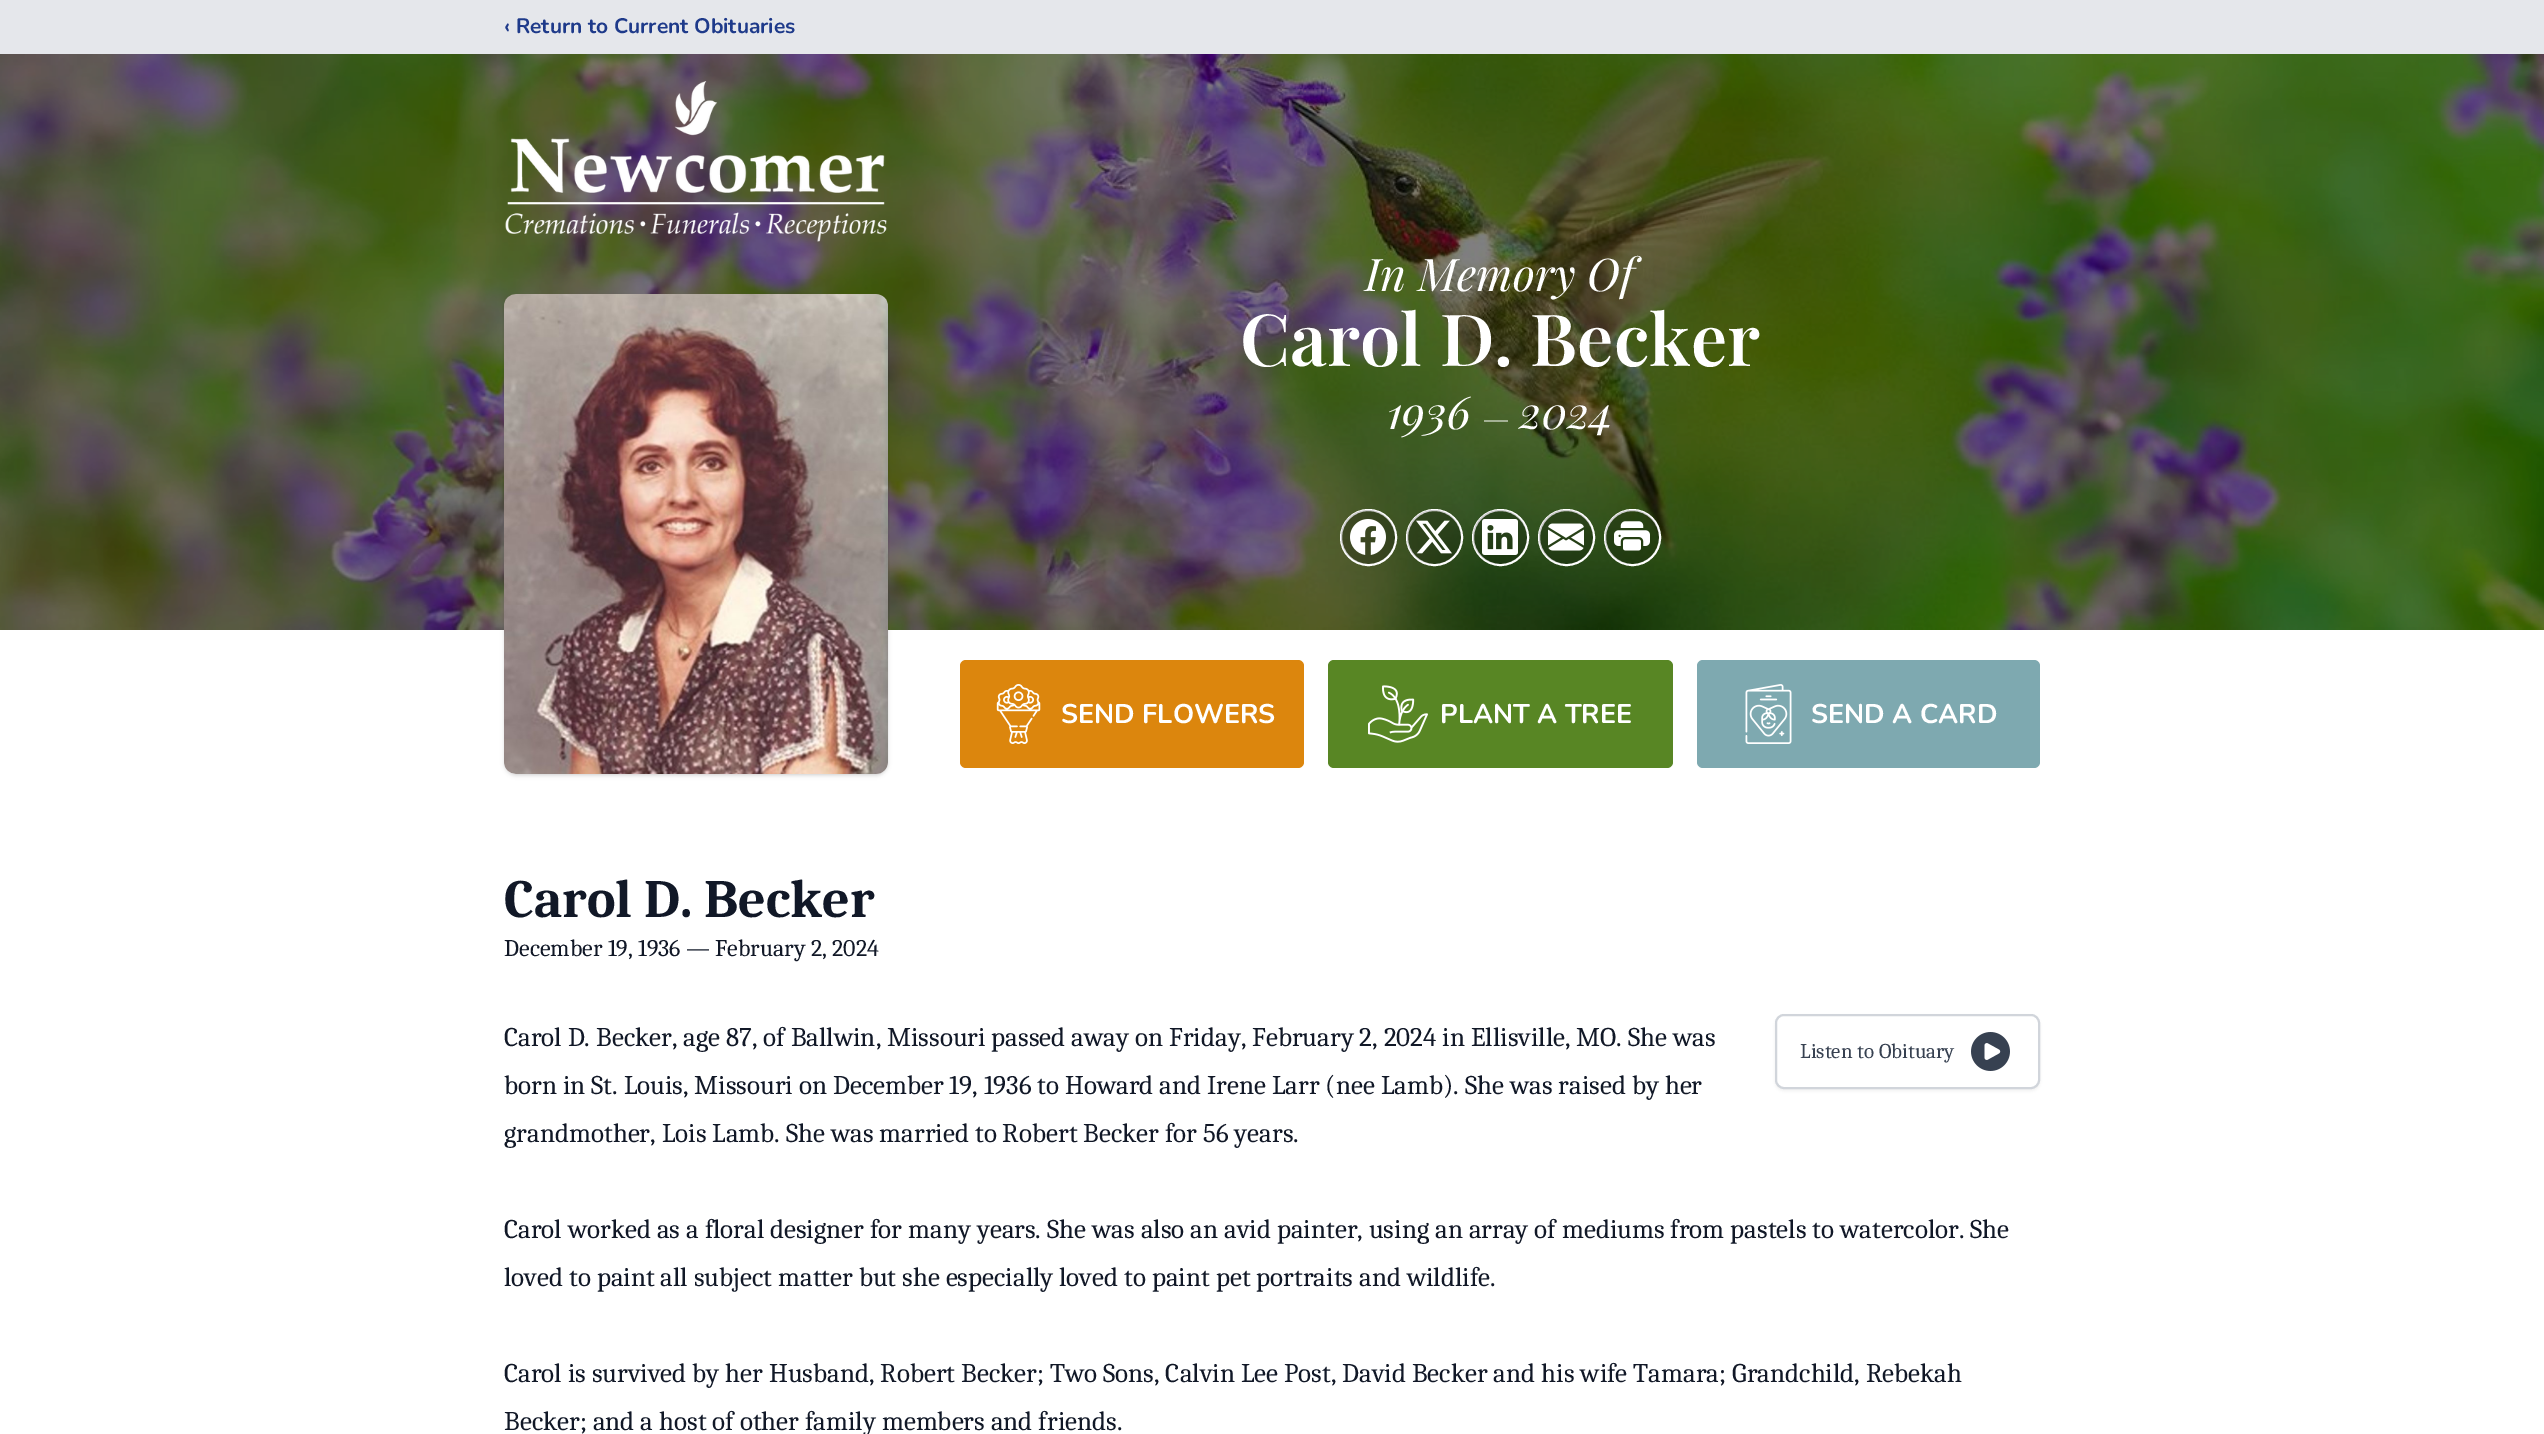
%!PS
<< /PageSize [2544 1434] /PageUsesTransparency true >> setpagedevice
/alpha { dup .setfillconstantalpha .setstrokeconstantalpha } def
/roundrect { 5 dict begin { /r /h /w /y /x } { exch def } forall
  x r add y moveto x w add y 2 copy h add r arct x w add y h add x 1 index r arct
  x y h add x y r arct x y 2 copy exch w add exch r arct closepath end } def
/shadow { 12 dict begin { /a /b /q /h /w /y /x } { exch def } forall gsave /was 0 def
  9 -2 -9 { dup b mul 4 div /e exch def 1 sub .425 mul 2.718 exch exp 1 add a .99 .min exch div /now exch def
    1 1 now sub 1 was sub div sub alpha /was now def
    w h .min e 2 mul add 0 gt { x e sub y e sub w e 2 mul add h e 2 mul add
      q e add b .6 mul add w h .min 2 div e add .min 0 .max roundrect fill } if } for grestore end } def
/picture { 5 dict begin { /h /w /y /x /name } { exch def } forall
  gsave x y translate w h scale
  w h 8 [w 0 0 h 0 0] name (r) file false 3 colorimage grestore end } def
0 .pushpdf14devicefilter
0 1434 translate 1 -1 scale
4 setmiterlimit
1 setgray
0 0 2544 1434 rectfill
0.898 0.906 0.922 setrgbcolor
0 0 2544 54 rectfill
/Nunito-Bold [21 0 0 -21 0 0] selectfont
0.118 0.227 0.541 setrgbcolor
504 33 moveto (‹ Return to Current Obituaries) show
(img1.rgb) 0 54 2544 576 picture
(img2.rgb) 505 81 382 161 picture
0 setgray
506 297 381 477 11 1.5 0.1 shadow
504 296 384 480 12 2 0.1 shadow
(img3.rgb) 504 294 384 480 picture
/PlayfairDisplay-Italic [45 0 0 -45 0 0] selectfont
1 setgray
1365 291 moveto (In Memory Of) show
/PlayfairDisplay-SemiBold [72 0 0 -72 0 0] selectfont
1240 366 moveto (Carol D. Becker) show
/PlayfairDisplay-Italic [45 0 0 -45 0 0] selectfont
1387 429 moveto (1936) show
0.5 alpha
1484 420 24 2 rectfill
1 alpha
1519 429 moveto (2024) show
2 setlinewidth
newpath 1368.5 537.5 27.5 0 360 arc closepath stroke
0.2 alpha
0 setgray
newpath 1368 537 27 0 360 arc closepath fill
1 alpha
(img4.rgb) 1350 519 36 36 picture
1 setgray
newpath 1434.5 537.5 27.5 0 360 arc closepath stroke
0.2 alpha
0 setgray
newpath 1434 537 27 0 360 arc closepath fill
1 alpha
(img5.rgb) 1416 520 36 34 picture
1 setgray
newpath 1500.5 537.5 27.5 0 360 arc closepath stroke
0.2 alpha
0 setgray
newpath 1500 537 27 0 360 arc closepath fill
1 alpha
(img6.rgb) 1482 519 36 36 picture
1 setgray
newpath 1566.5 537.5 27.5 0 360 arc closepath stroke
0.2 alpha
0 setgray
newpath 1566 537 27 0 360 arc closepath fill
1 alpha
(img7.rgb) 1548 523 36 28 picture
1 setgray
newpath 1632.5 537.5 27.5 0 360 arc closepath stroke
0.2 alpha
0 setgray
newpath 1632 537 27 0 360 arc closepath fill
1 alpha
(img8.rgb) 1614 521 36 30 picture
0.863 0.525 0.051 setrgbcolor
960 660 344 108 6 roundrect fill
(img9.rgb) 996 684 45 60 picture
/Nunito-Bold [27 0 0 -27 0 0] selectfont
1 setgray
1061 723 moveto (SEND FLOWERS) show
0.345 0.525 0.141 setrgbcolor
1328 660 345 108 6 roundrect fill
(img10.rgb) 1368 685 60 58 picture
1 setgray
1440 723 moveto (PLANT A TREE) show
0.494 0.663 0.69 setrgbcolor
1697 660 343 108 6 roundrect fill
(img11.rgb) 1745 684 47 60 picture
1 setgray
1811 723 moveto (SEND A CARD) show
/Caladea-Bold [54 0 0 -54 0 0] selectfont
0.067 0.094 0.153 setrgbcolor
504 917 moveto (Carol D. Becker) show
/Caladea-Regular [24 0 0 -24 0 0] selectfont
504 956 moveto (December 19, 1936 — February 2, 2024) show
/Caladea-Regular [27 0 0 -27 0 0] selectfont
504 1046 moveto (Carol D. Becker, age 87, of Ballwin, Missouri passed away on Friday, February 2, 2024 in Ellisville, MO. She was) show
504 1094 moveto (born in St. Louis, Missouri on December 19, 1936 to Howard and Irene Larr \(nee Lamb\). She was raised by her) show
504 1142 moveto (grandmother, Lois Lamb. She was married to Robert Becker for 56 years.) show
504 1238 moveto (Carol worked as a floral designer for many years. She was also an avid painter, using an array of mediums from pastels to watercolor. She) show
504 1286 moveto (loved to paint all subject matter but she especially loved to paint pet portraits and wildlife.) show
504 1382 moveto (Carol is survived by her Husband, Robert Becker; Two Sons, Calvin Lee Post, David Becker and his wife Tamara; Grandchild, Rebekah) show
504 1430 moveto (Becker; and a host of other family members and friends.) show
gsave
newpath 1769 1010 moveto 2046 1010 lineto 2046 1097 lineto 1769 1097 lineto closepath 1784 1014 moveto 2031 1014 lineto 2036 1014 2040 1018 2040 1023 curveto 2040 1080 lineto 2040 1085 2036 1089 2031 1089 curveto 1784 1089 lineto 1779 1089 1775 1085 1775 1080 curveto 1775 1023 lineto 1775 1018 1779 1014 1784 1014 curveto closepath eoclip newpath
0 setgray
1775 1016 265 75 9 1.5 0.05 shadow
grestore
0.82 0.835 0.859 setrgbcolor
1776 1015 263 73 8 roundrect stroke
/Caladea-Regular [21 0 0 -21 0 0] selectfont
0.216 0.255 0.318 setrgbcolor
1800 1058 moveto (Listen to Obituary) show
(img12.rgb) 1971 1032 39 39 picture
.poppdf14devicefilter showpage
